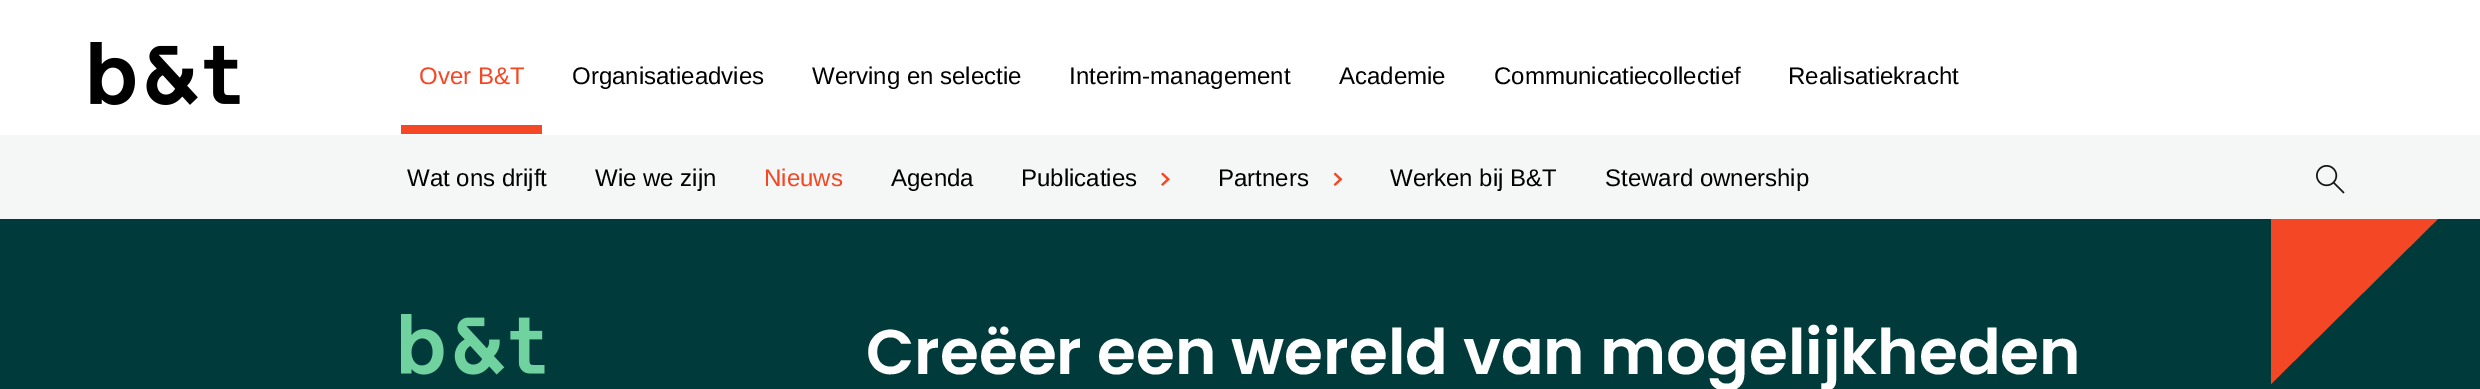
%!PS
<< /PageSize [2480 389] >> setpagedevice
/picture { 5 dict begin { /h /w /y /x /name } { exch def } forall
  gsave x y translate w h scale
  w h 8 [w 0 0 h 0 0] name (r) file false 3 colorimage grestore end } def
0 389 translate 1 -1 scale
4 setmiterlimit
0 0.227 0.227 setrgbcolor
0 0 2480 389 rectfill
0.957 0.278 0.145 setrgbcolor
newpath 2271 384 moveto 2271 202 lineto 2455 202 lineto closepath fill
0.961 0.969 0.969 setrgbcolor
0 135 2480 84 rectfill
1 setgray
0 0 2480 135 rectfill
(img1.rgb) 90 42 150 63 picture
/LiberationSans-Regular [24 0 0 -24 0 0] selectfont
0 setgray
572 84 moveto (Organisatieadvies) show
812 84 moveto (Werving en selectie) show
1069 84 moveto (Interim-management) show
1339 84 moveto (Academie) show
1494 84 moveto (Communicatiecollectief) show
1788 84 moveto (Realisatiekracht) show
0.957 0.278 0.145 setrgbcolor
419 84 moveto (Over B&T) show
401 125 141 9 rectfill
0 setgray
407 186 moveto (Wat ons drijft) show
595 186 moveto (Wie we zijn) show
0.957 0.278 0.145 setrgbcolor
764 186 moveto (Nieuws) show
0 setgray
891 186 moveto (Agenda) show
1021 186 moveto (Publicaties) show
(img2.rgb) 1161 172 9 14 picture
1218 186 moveto (Partners) show
(img3.rgb) 1333 172 10 14 picture
1390 186 moveto (Werken bij B&T) show
1605 186 moveto (Steward ownership) show
(img4.rgb) 2316 165 29 29 picture
(img5.rgb) 401 314 144 61 picture
/Poppins-SemiBold [63 0 0 -63 0 0] selectfont
1 setgray
866 374 moveto (Creëer een wereld van mogelijkheden) show
showpage
